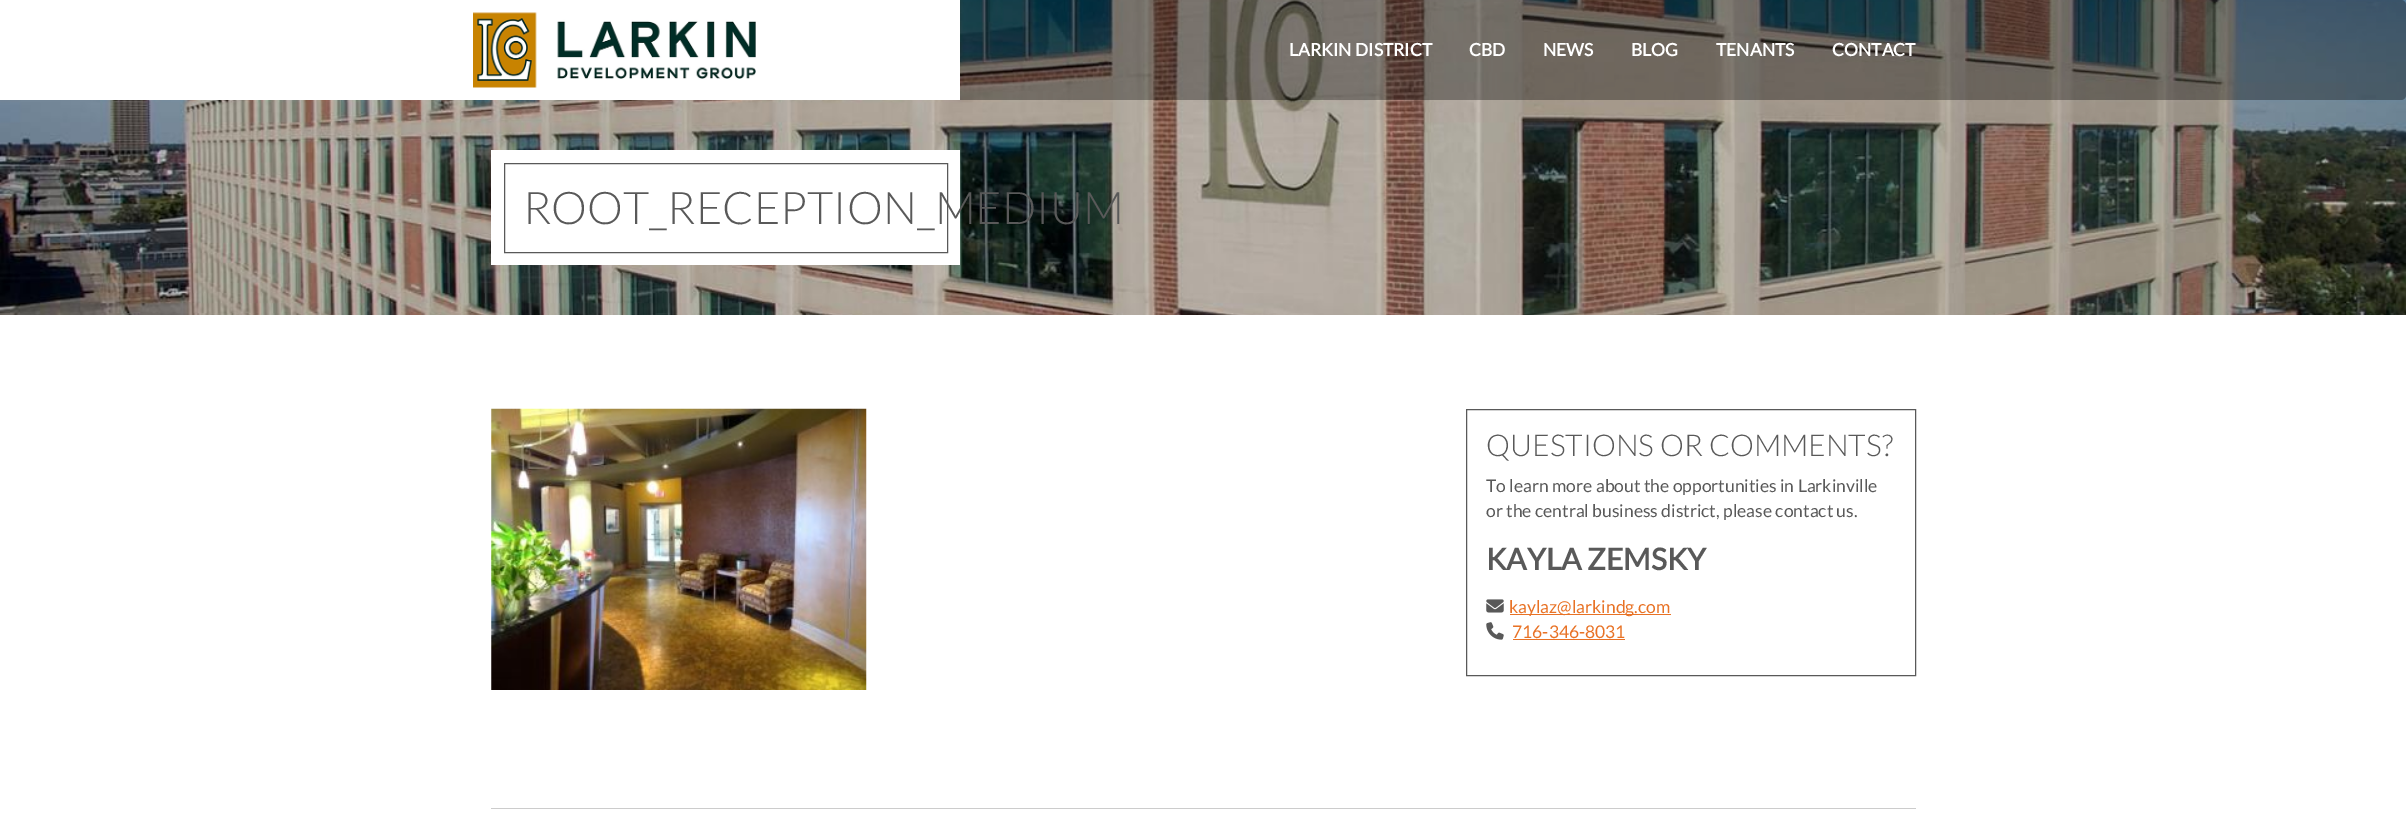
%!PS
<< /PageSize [2406 832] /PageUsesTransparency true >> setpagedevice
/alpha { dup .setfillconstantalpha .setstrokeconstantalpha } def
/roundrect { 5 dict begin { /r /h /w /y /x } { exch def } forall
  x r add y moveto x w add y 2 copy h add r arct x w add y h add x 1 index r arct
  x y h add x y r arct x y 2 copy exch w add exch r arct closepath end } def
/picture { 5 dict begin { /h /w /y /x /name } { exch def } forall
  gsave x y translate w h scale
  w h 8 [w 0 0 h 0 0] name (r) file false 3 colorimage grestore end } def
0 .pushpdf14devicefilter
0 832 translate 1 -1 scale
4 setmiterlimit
1 setgray
0 0 2406 832 rectfill
(img2.rgb) 0 0 2406 315 picture
0.33 alpha
0 setgray
0 0 2406 100 5 roundrect fill
1 alpha
1 setgray
0 0 960 100 rectfill
(img1.rgb) 473 12 283 76 picture
/Lato-Bold [17.5 0 0 -17.5 0 0] selectfont
1289 56 moveto (LARKIN DISTRICT) show
1469 56 moveto (CBD) show
1543 56 moveto (NEWS) show
1631 56 moveto (BLOG) show
1716 56 moveto (TENANTS) show
1832 56 moveto (CONTACT) show
491 150 469 115 rectfill
0.349 setgray
504.5 163.5 443 89 rectstroke
/Lato-Light [45 0 0 -45 0 0] selectfont
523 224 moveto (ROOT_RECEPTION_MEDIUM) show
(img3.rgb) 491 408 376 282 picture
1466.5 409.5 449 266 rectstroke
/Lato-Light [30 0 0 -30 0 0] selectfont
1486 456 moveto (QUESTIONS OR COMMENTS?) show
/Lato-Regular [17.5 0 0 -17.5 0 0] selectfont
1486 492 moveto (To learn more about the opportunities in Larkinville) show
1486 517 moveto (or the central business district, please contact us.) show
/Lato-Bold [30 0 0 -30 0 0] selectfont
1486 570 moveto (KAYLA ZEMSKY) show
(img4.rgb) 1486 599 18 14 picture
0.91 0.447 0.145 setrgbcolor
1510 614 161 1 rectfill
/Lato-Regular [17.5 0 0 -17.5 0 0] selectfont
1509 613 moveto (kaylaz@larkindg.com) show
(img5.rgb) 1486 622 18 18 picture
1512 638 moveto (716-346-8031) show
1513 639 112 1 rectfill
0.8 setgray
491 808 1425 1 rectfill
.poppdf14devicefilter showpage
